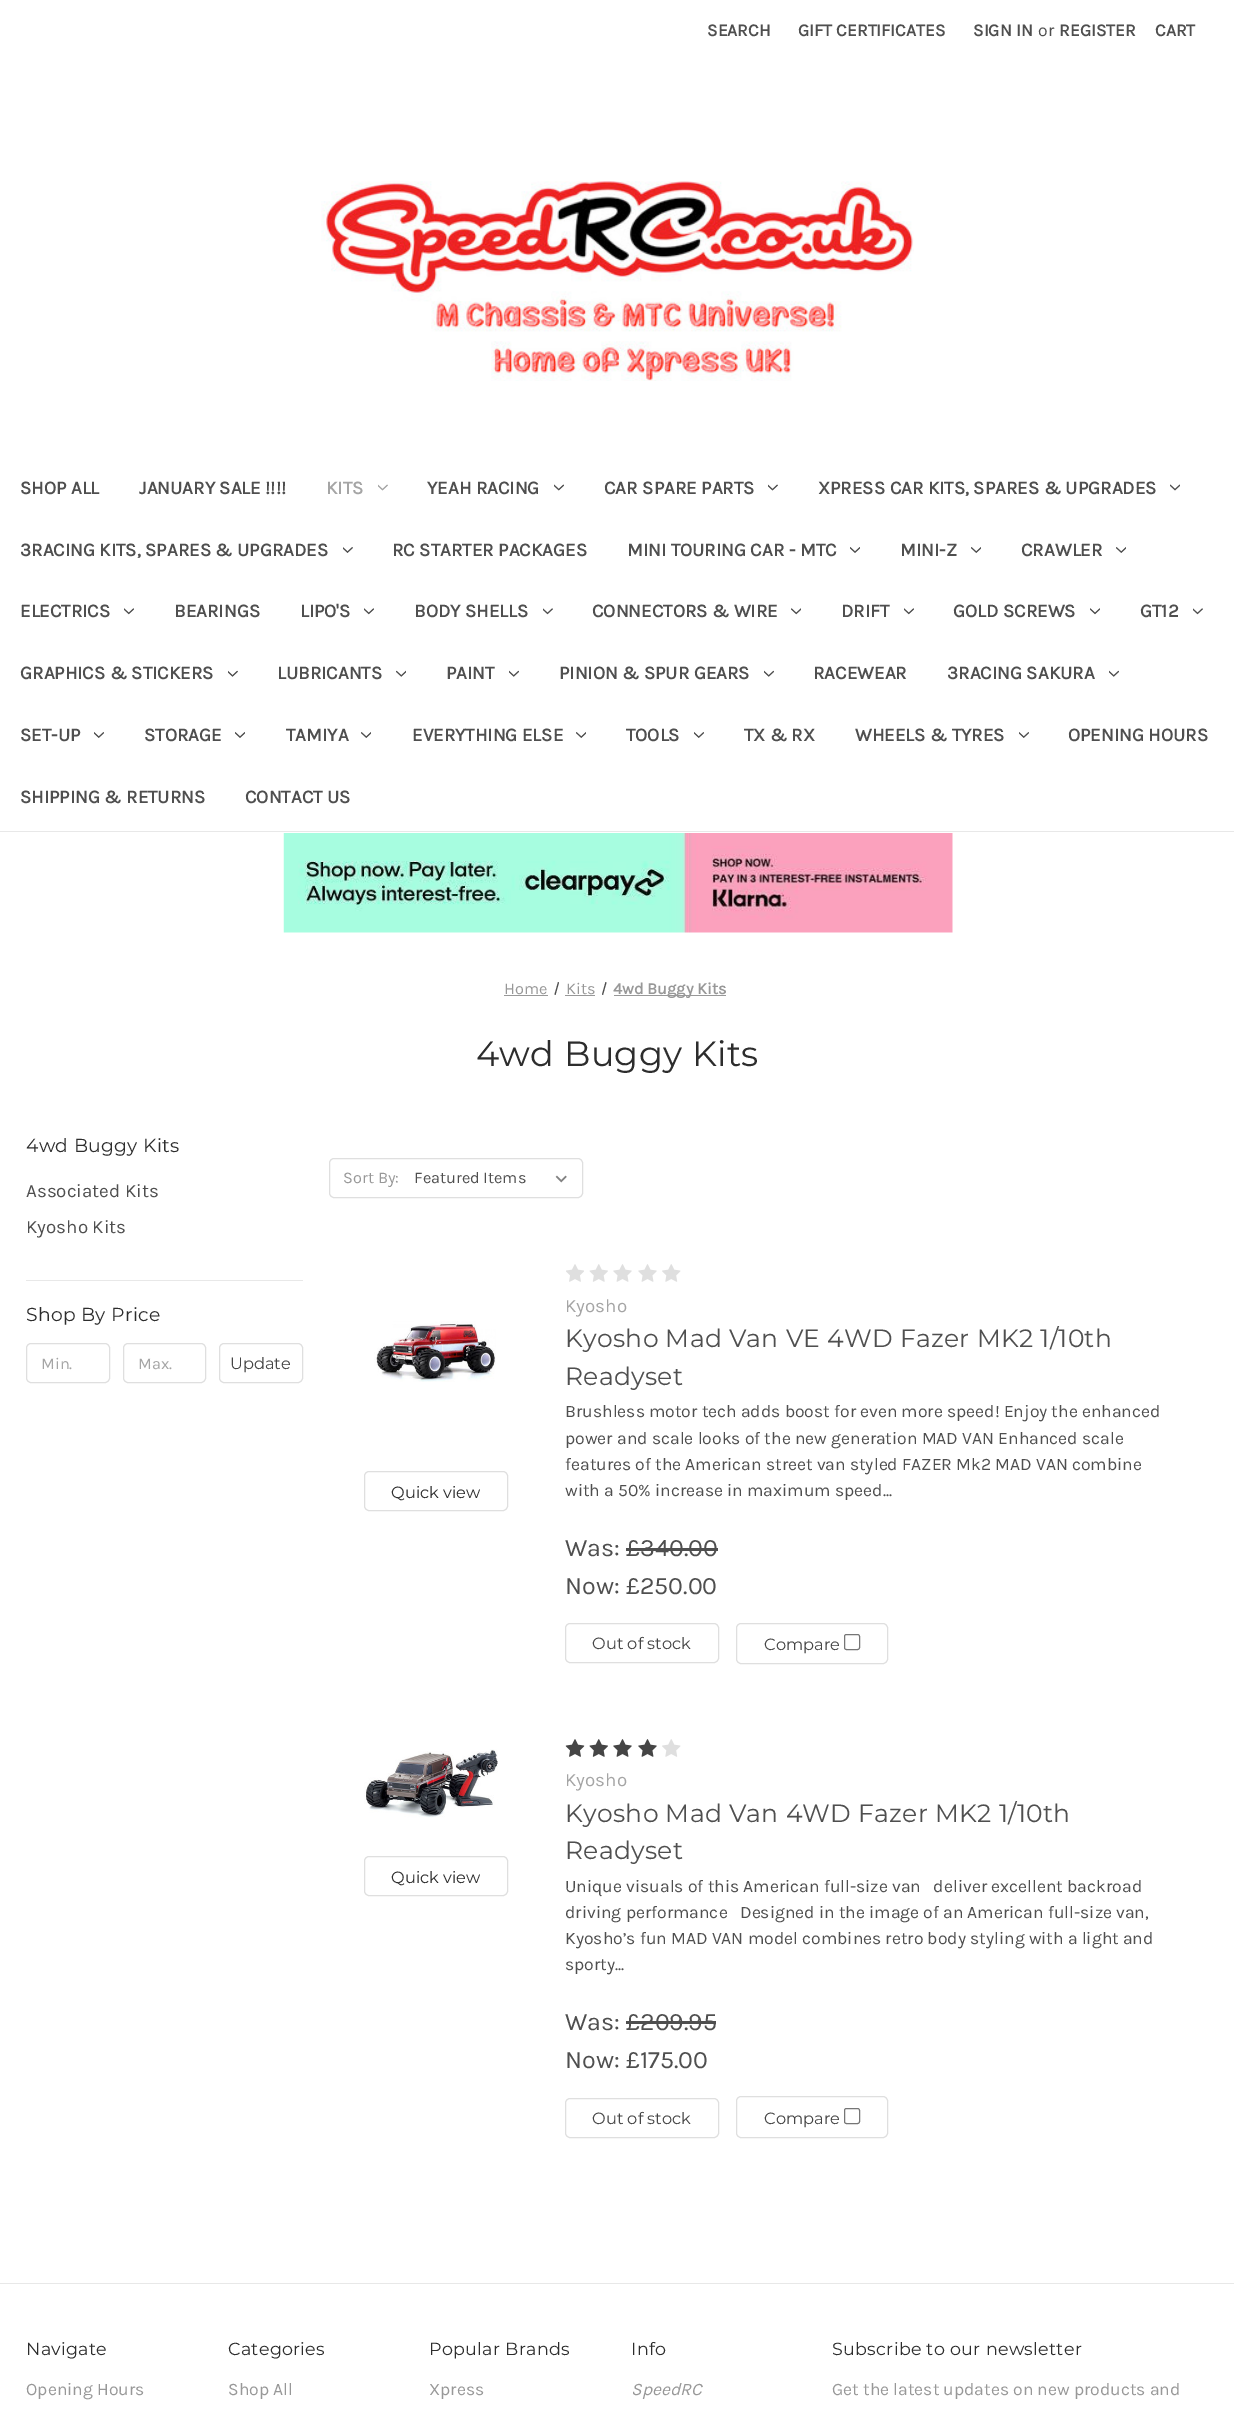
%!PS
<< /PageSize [1234 2411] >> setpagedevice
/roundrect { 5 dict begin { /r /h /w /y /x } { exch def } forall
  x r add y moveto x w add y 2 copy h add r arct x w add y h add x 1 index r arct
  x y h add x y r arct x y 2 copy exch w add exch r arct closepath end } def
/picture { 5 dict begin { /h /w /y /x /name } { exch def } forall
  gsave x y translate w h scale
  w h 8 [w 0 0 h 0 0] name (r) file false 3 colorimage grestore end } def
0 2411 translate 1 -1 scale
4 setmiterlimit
1 setgray
0 0 1234 2411 rectfill
0.91 setgray
0 831 1234 1 rectfill
/Karla-Bold [17.5 0 0 -17.5 0 0] selectfont
0.31 setgray
707 36 moveto (SEARCH) show
798 36 moveto (GIFT CERTIFICATES) show
973 36 moveto (SIGN IN) show
/Karla-Regular [17.5 0 0 -17.5 0 0] selectfont
1038 36 moveto (or) show
/Karla-Bold [17.5 0 0 -17.5 0 0] selectfont
1059 36 moveto (REGISTER) show
1155 36 moveto (CART) show
(img1.rgb) 321 181 593 200 picture
/Karla-Bold [18.75 0 0 -18.75 0 0] selectfont
20 494 moveto (SHOP ALL) show
139 494 moveto (JANUARY SALE !!!!) show
0.647 setgray
326 494 moveto (KITS) show
(img2.rgb) 378 484 10 7 picture
0.31 setgray
427 494 moveto (YEAH RACING) show
(img3.rgb) 554 484 10 7 picture
604 494 moveto (CAR SPARE PARTS) show
(img4.rgb) 768 484 10 7 picture
818 494 moveto (XPRESS CAR KITS, SPARES & UPGRADES) show
(img5.rgb) 1170 484 10 7 picture
20 556 moveto (3RACING KITS, SPARES & UPGRADES) show
(img6.rgb) 343 547 10 6 picture
392 556 moveto (RC STARTER PACKAGES) show
627 556 moveto (MINI TOURING CAR - MTC) show
(img7.rgb) 850 547 10 6 picture
900 556 moveto (MINI-Z) show
(img8.rgb) 971 547 10 6 picture
1021 556 moveto (CRAWLER) show
(img8.rgb) 1116 547 10 6 picture
20 617 moveto (ELECTRICS) show
(img9.rgb) 124 608 10 7 picture
174 617 moveto (BEARINGS) show
300 617 moveto (LIPO'S) show
(img9.rgb) 364 608 10 7 picture
414 617 moveto (BODY SHELLS) show
(img10.rgb) 543 608 10 7 picture
592 617 moveto (CONNECTORS & WIRE) show
(img11.rgb) 791 608 10 7 picture
841 617 moveto (DRIFT) show
(img9.rgb) 904 608 10 7 picture
953 617 moveto (GOLD SCREWS) show
(img12.rgb) 1090 608 10 7 picture
1140 617 moveto (GT12) show
(img10.rgb) 1193 608 10 7 picture
20 679 moveto (GRAPHICS & STICKERS) show
(img13.rgb) 228 670 10 7 picture
277 679 moveto (LUBRICANTS) show
(img14.rgb) 396 670 10 7 picture
446 679 moveto (PAINT) show
(img15.rgb) 509 670 10 7 picture
559 679 moveto (PINION & SPUR GEARS) show
(img15.rgb) 764 670 10 7 picture
813 679 moveto (RACEWEAR) show
947 679 moveto (3RACING SAKURA) show
(img15.rgb) 1109 670 10 7 picture
20 741 moveto (SET-UP) show
(img16.rgb) 94 732 10 6 picture
144 741 moveto (STORAGE) show
(img7.rgb) 235 732 10 6 picture
286 741 moveto (TAMIYA) show
(img8.rgb) 361 732 10 6 picture
412 741 moveto (EVERYTHING ELSE) show
(img8.rgb) 576 732 10 6 picture
626 741 moveto (TOOLS) show
(img16.rgb) 694 732 10 6 picture
744 741 moveto (TX & RX) show
855 741 moveto (WHEELS & TYRES) show
(img16.rgb) 1019 732 10 6 picture
1068 741 moveto (OPENING HOURS) show
20 803 moveto (SHIPPING & RETURNS) show
245 803 moveto (CONTACT US) show
(img17.rgb) 283 833 670 100 picture
/Karla-Regular [16.25 0 0 -16.25 0 0] selectfont
0.596 setgray
504 994 moveto (Home) show
504 995 44 1 rectfill
566 994 moveto (Kits) show
0.31 setgray
newpath 558 982 moveto 559 982.5 lineto 555.5 995 lineto 554.5 994.5 lineto closepath 605.5 982 moveto 606.5 982.5 lineto 603 995 lineto 602 994.5 lineto closepath fill
0.596 setgray
565 995 30 1 rectfill
614 995 112 1 rectfill
/Karla-Bold [16.25 0 0 -16.25 0 0] selectfont
613 994 moveto (4wd Buggy Kits) show
/Montserrat-Thin [35 0 0 -35 0 0] selectfont
0.176 setgray
476 1066 moveto 0.3 0 (4wd Buggy Kits) ashow
/Montserrat-Thin [18.75 0 0 -18.75 0 0] selectfont
26 1152 moveto 0.3 0 (4wd Buggy Kits) ashow
/Karla-Regular [18.75 0 0 -18.75 0 0] selectfont
0.31 setgray
26 1197 moveto (Associated Kits) show
26 1233 moveto (Kyosho Kits) show
0.91 setgray
26 1280 277 1 rectfill
/Montserrat-Thin [18.75 0 0 -18.75 0 0] selectfont
0.176 setgray
26 1321 moveto 0.3 0 (Shop By Price) ashow
0.875 setgray
26.5 1343.5 83 39 4.5 roundrect stroke
/Karla-Regular [16.25 0 0 -16.25 0 0] selectfont
0.647 setgray
41 1369 moveto (Min.) show
0.875 setgray
123.5 1343.5 82 39 4.5 roundrect stroke
0.647 setgray
138 1369 moveto (Max.) show
0.875 setgray
219.5 1343.5 83 39 4.5 roundrect stroke
/Montserrat-Thin [16.25 0 0 -16.25 0 0] selectfont
0.271 setgray
230 1369 moveto (Update) show
0.875 setgray
329.5 1158.5 253 39 4.5 roundrect stroke
/Karla-Regular [16.25 0 0 -16.25 0 0] selectfont
0.596 setgray
343 1183 moveto (Sort By:) show
(img18.rgb) 555 1175 12 8 picture
0.31 setgray
414 1183 moveto (Featured Items) show
(img19.rgb) 374 1321 122 61 picture
0.875 setgray
364.5 1471.5 143 39 4.5 roundrect stroke
/Montserrat-Thin [16.25 0 0 -16.25 0 0] selectfont
0.176 setgray
391 1498 moveto (Quick view) show
(img20.rgb) 566 1264 18 18 picture
(img21.rgb) 589 1264 19 18 picture
(img22.rgb) 613 1264 19 18 picture
(img22.rgb) 638 1264 19 18 picture
(img23.rgb) 662 1264 19 18 picture
/Karla-Regular [18.75 0 0 -18.75 0 0] selectfont
0.647 setgray
565 1312 moveto (Kyosho) show
/Montserrat-Thin [25 0 0 -25 0 0] selectfont
0.31 setgray
565 1347 moveto 0.3 0 (Kyosho Mad Van VE 4WD Fazer MK2 1/10th) ashow
565 1385 moveto 0.3 0 (Readyset) ashow
/Karla-Regular [17.5 0 0 -17.5 0 0] selectfont
565 1417 moveto (Brushless motor tech adds boost for even more speed! Enjoy the enhanced) show
565 1444 moveto (power and scale looks of the new generation MAD VAN Enhanced scale) show
565 1470 moveto (features of the American street van styled FAZER Mk2 MAD VAN combine) show
565 1496 moveto (with a 50% increase in maximum speed...) show
/Karla-Regular [25 0 0 -25 0 0] selectfont
565 1556 moveto (Was: £340.00) show
626 1548 92 3 rectfill
565 1594 moveto (Now: £250.00) show
0.875 setgray
565.5 1623.5 153 39 4.5 roundrect stroke
/Montserrat-Thin [16.25 0 0 -16.25 0 0] selectfont
0.271 setgray
592 1649 moveto (Out of stock) show
0.875 setgray
736.5 1623.5 151 40 4.5 roundrect stroke
0.271 setgray
764 1650 moveto (Compare) show
0.463 setgray
844.5 1634.5 15 15 2 roundrect stroke
(img24.rgb) 364 1749 134 69 picture
0.875 setgray
364.5 1856.5 143 39 4.5 roundrect stroke
0.176 setgray
391 1883 moveto (Quick view) show
(img25.rgb) 565 1739 20 18 picture
(img26.rgb) 589 1739 19 18 picture
(img27.rgb) 613 1739 19 18 picture
(img27.rgb) 638 1739 19 18 picture
(img23.rgb) 662 1739 19 18 picture
/Karla-Regular [18.75 0 0 -18.75 0 0] selectfont
0.647 setgray
565 1786 moveto (Kyosho) show
/Montserrat-Thin [25 0 0 -25 0 0] selectfont
0.31 setgray
565 1822 moveto 0.3 0 (Kyosho Mad Van 4WD Fazer MK2 1/10th) ashow
565 1859 moveto 0.3 0 (Readyset) ashow
/Karla-Regular [17.5 0 0 -17.5 0 0] selectfont
565 1892 moveto (Unique visuals of this American full-size van   deliver excellent backroad) show
565 1918 moveto (driving performance   Designed in the image of an American full-size van,) show
565 1944 moveto (Kyosho’s fun MAD VAN model combines retro body styling with a light and) show
565 1970 moveto (sporty...) show
/Karla-Regular [25 0 0 -25 0 0] selectfont
565 2030 moveto (Was: £209.95) show
626 2021 90 3 rectfill
565 2068 moveto (Now: £175.00) show
0.875 setgray
565.5 2098.5 153 39 4.5 roundrect stroke
/Montserrat-Thin [16.25 0 0 -16.25 0 0] selectfont
0.271 setgray
592 2124 moveto (Out of stock) show
0.875 setgray
736.5 2096.5 151 41 4.5 roundrect stroke
0.271 setgray
764 2124 moveto (Compare) show
0.463 setgray
844.5 2108.5 15 15 2 roundrect stroke
0.91 setgray
0 2283 1234 1 rectfill
/Montserrat-Thin [17.5 0 0 -17.5 0 0] selectfont
0.176 setgray
26 2355 moveto 0.3 0 (Navigate) ashow
/Karla-Regular [17.5 0 0 -17.5 0 0] selectfont
0.596 setgray
26 2395 moveto (Opening Hours) show
/Montserrat-Thin [17.5 0 0 -17.5 0 0] selectfont
0.176 setgray
228 2355 moveto 0.3 0 (Categories) ashow
/Karla-Regular [17.5 0 0 -17.5 0 0] selectfont
0.596 setgray
228 2395 moveto (Shop All) show
/Montserrat-Thin [17.5 0 0 -17.5 0 0] selectfont
0.176 setgray
429 2355 moveto 0.3 0 (Popular Brands) ashow
/Karla-Regular [17.5 0 0 -17.5 0 0] selectfont
0.596 setgray
429 2395 moveto (Xpress) show
/Montserrat-Thin [17.5 0 0 -17.5 0 0] selectfont
0.176 setgray
631 2355 moveto 0.3 0 (Info) ashow
/Karla-Italic [17.5 0 0 -17.5 0 0] selectfont
0.596 setgray
631 2395 moveto (SpeedRC) show
/Montserrat-Thin [17.5 0 0 -17.5 0 0] selectfont
0.176 setgray
832 2355 moveto 0.3 0 (Subscribe to our newsletter) ashow
/Karla-Regular [17.5 0 0 -17.5 0 0] selectfont
0.596 setgray
832 2395 moveto (Get the latest updates on new products and) show
showpage
